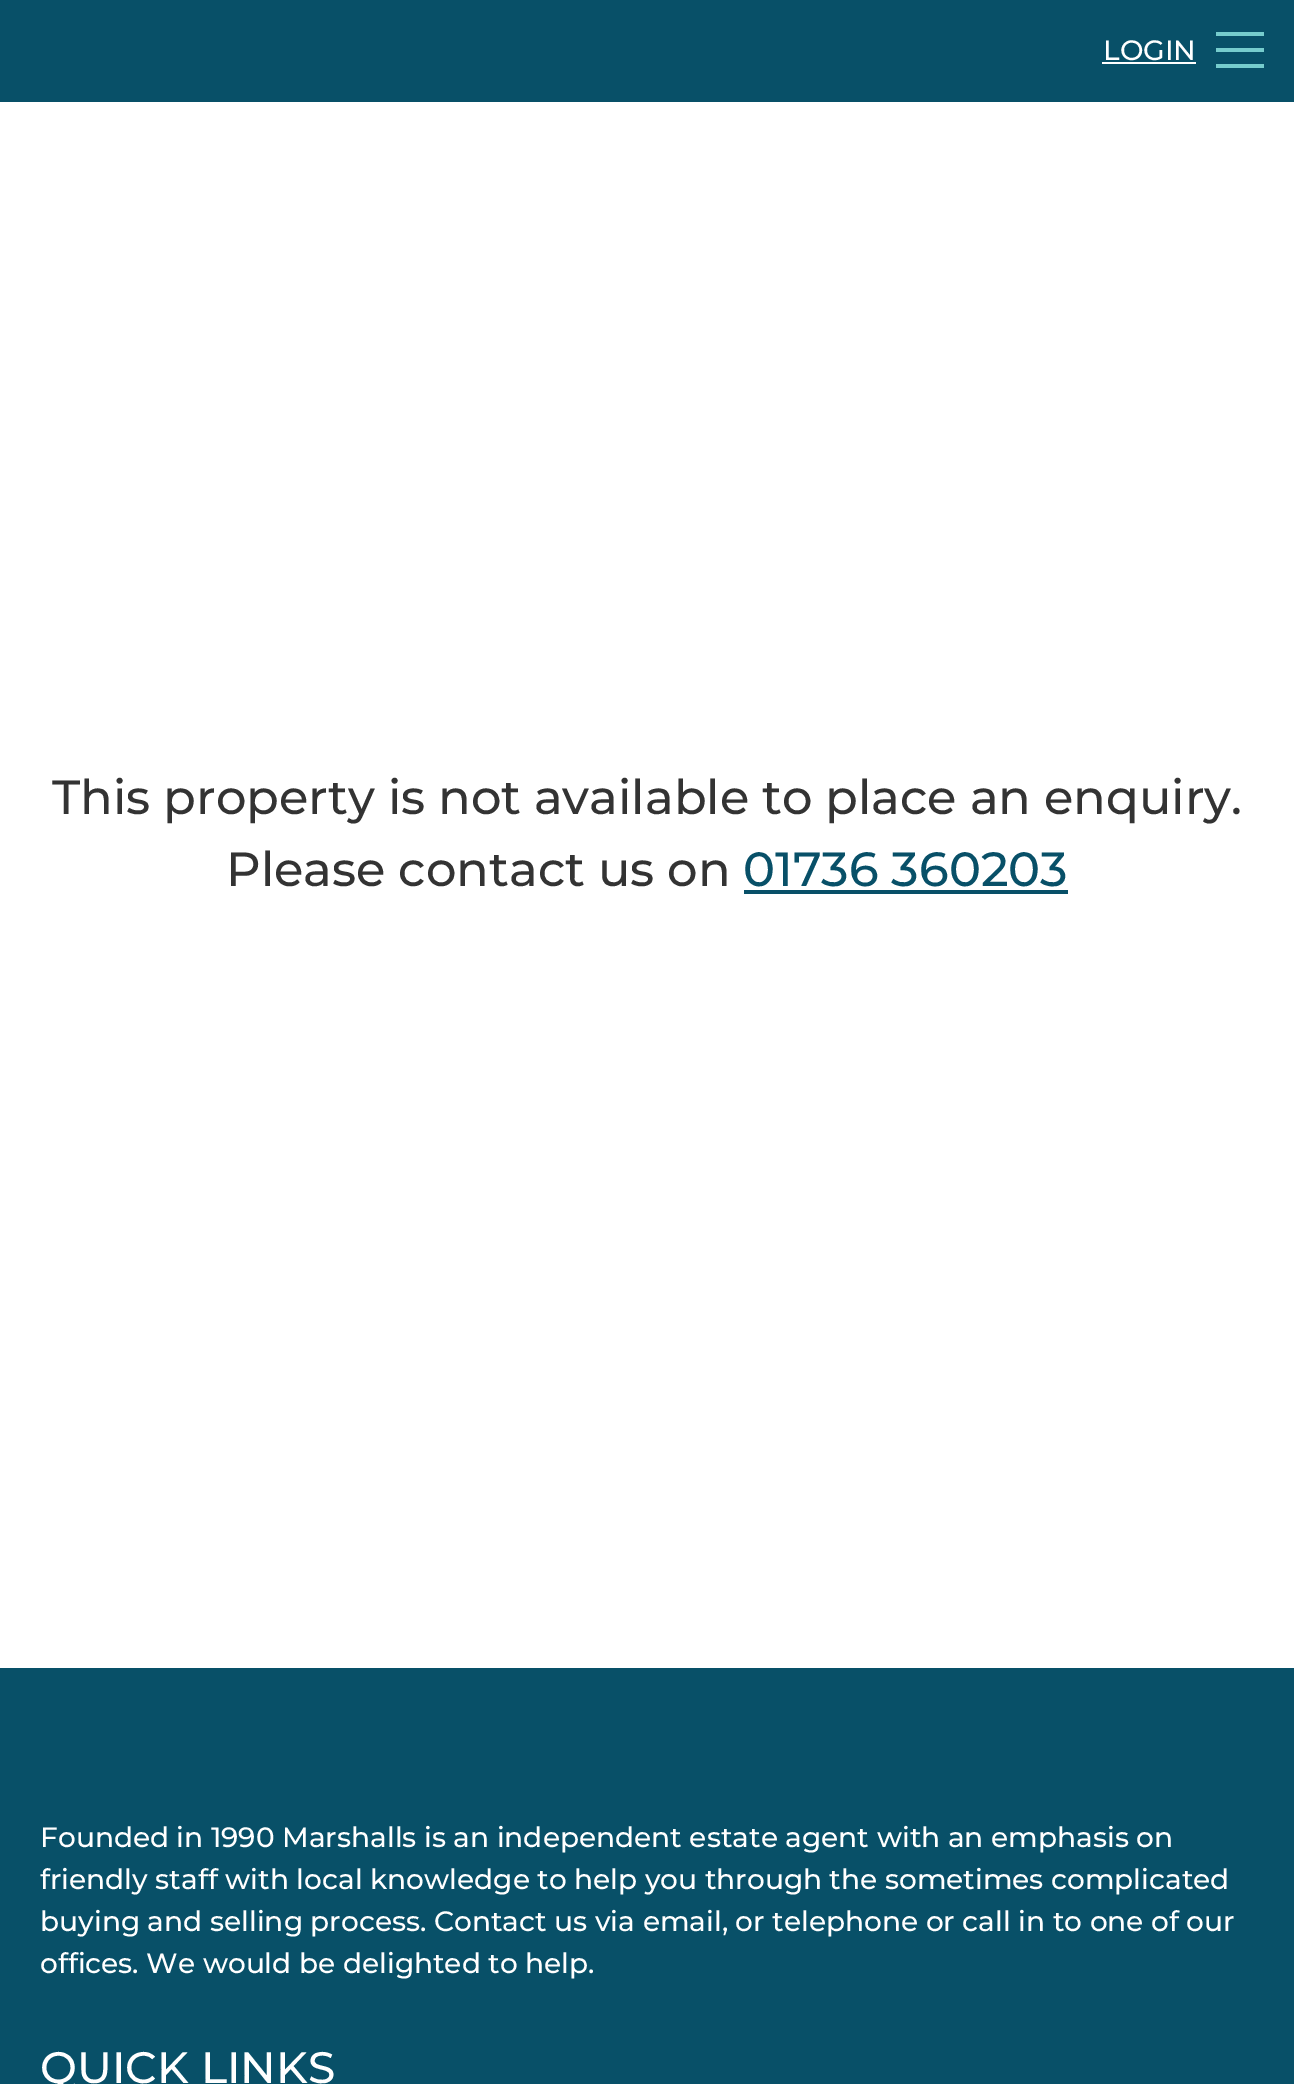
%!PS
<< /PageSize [1294 2084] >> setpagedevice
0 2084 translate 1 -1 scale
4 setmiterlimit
1 setgray
0 0 1294 2084 rectfill
0.031 0.314 0.408 setrgbcolor
0 0 1294 102 rectfill
/Montserrat-Medium [28 0 0 -28 0 0] selectfont
1 setgray
1103 60 moveto (LOGIN) show
1102 62 94 2 rectfill
0.463 0.8 0.804 setrgbcolor
1216 48 48 4 rectfill
1216 32 48 4 rectfill
1216 64 48 4 rectfill
/Montserrat-Medium [48 0 0 -48 0 0] selectfont
0.2 setgray
52 814 moveto (This property is not available to place an enquiry.) show
226 886 moveto (Please contact us on) show
0.031 0.314 0.408 setrgbcolor
743 886 moveto (01736 360203) show
744 890 324 4 rectfill
0 1668 1294 416 rectfill
/Montserrat-Medium [28 0 0 -28 0 0] selectfont
1 setgray
40 1847 moveto (Founded in 1990 Marshalls is an independent estate agent with an emphasis on) show
40 1889 moveto (friendly staff with local knowledge to help you through the sometimes complicated) show
40 1931 moveto (buying and selling process. Contact us via email, or telephone or call in to one of our) show
40 1973 moveto (offices. We would be delighted to help.) show
/Montserrat-Medium [44 0 0 -44 0 0] selectfont
40 2083 moveto (QUICK LINKS) show
showpage
